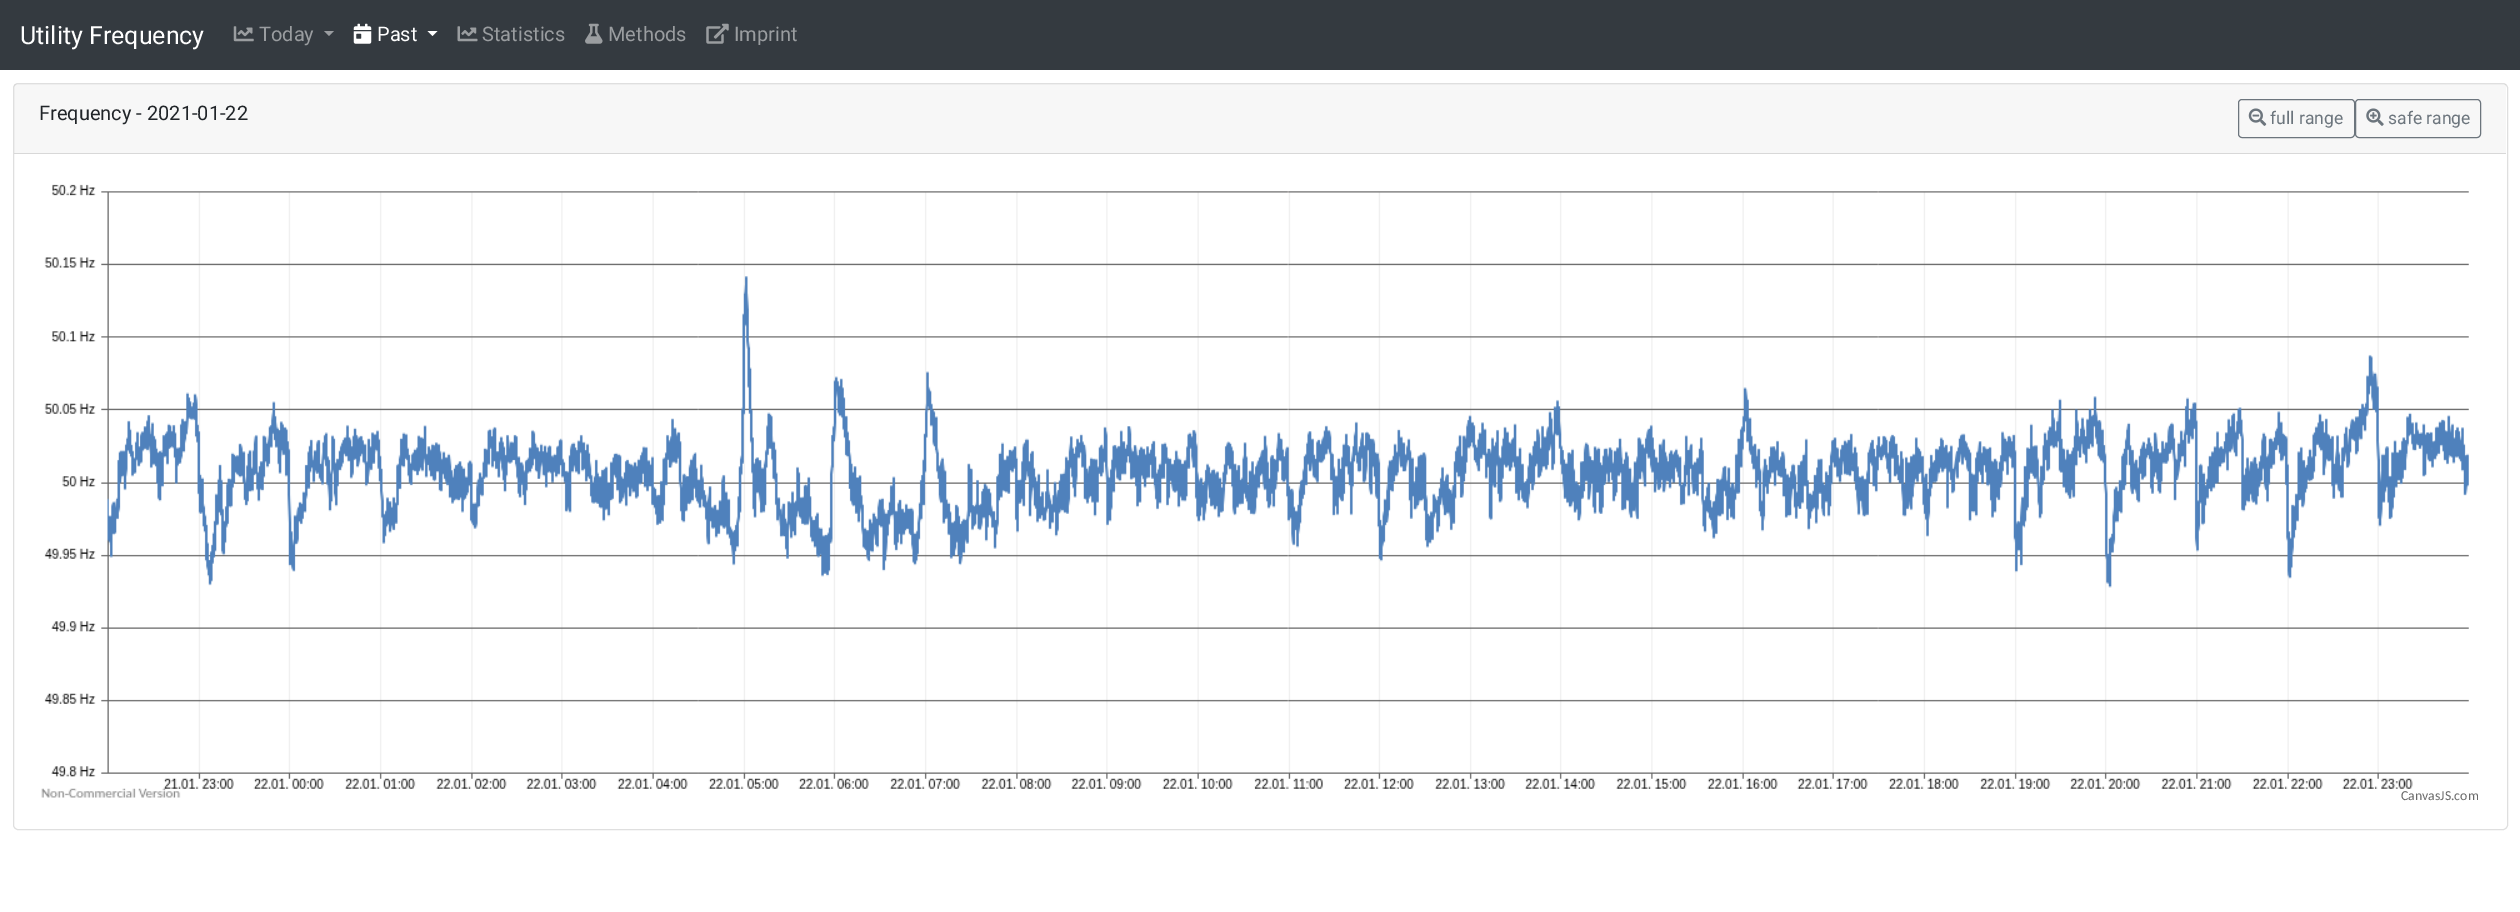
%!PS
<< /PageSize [2520 912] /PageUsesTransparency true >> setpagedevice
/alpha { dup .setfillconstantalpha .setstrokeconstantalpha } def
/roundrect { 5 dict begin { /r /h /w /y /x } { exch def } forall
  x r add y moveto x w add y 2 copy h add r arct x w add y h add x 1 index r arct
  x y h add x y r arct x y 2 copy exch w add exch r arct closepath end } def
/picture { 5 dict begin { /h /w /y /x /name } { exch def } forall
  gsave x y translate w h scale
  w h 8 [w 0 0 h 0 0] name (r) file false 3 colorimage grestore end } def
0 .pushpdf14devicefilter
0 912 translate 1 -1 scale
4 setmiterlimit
1 setgray
0 0 2520 912 rectfill
0.204 0.227 0.251 setrgbcolor
0 0 2520 70 rectfill
/Roboto-Regular [25 0 0 -25 0 0] selectfont
1 setgray
20 44 moveto (Utility Frequency) show
(img1.rgb) 233 26 21 16 picture
/Roboto-Regular [20 0 0 -20 0 0] selectfont
0.604 0.616 0.627 setrgbcolor
259 41 moveto (Today) show
newpath 324 31 moveto 334 31 lineto 329 36 lineto closepath fill
(img2.rgb) 353 23 19 21 picture
1 setgray
377 41 moveto (Past) show
newpath 427.5 31 moveto 437.5 31 lineto 432.5 36 lineto closepath fill
(img3.rgb) 457 26 21 16 picture
0.604 0.616 0.627 setrgbcolor
482 41 moveto (Statistics) show
(img4.rgb) 585 23 18 21 picture
608 41 moveto (Methods) show
(img5.rgb) 706 23 23 21 picture
734 41 moveto (Imprint) show
0.875 setgray
13.5 83.5 2494 746 4.5 roundrect stroke
0.03 alpha
0 setgray
14 84 2492 69 rectfill
1 alpha
0.847 setgray
14 153 2492 1 rectfill
0.129 0.145 0.161 setrgbcolor
39 120 moveto (Frequency - 2021-01-22) show
0.424 0.459 0.49 setrgbcolor
2238.5 99.5 116 38 3.5 roundrect stroke
(img6.rgb) 2248 108 19 18 picture
/Roboto-Regular [17.5 0 0 -17.5 0 0] selectfont
2270 124 moveto (full range) show
2355.5 99.5 125 38 3.5 roundrect stroke
(img7.rgb) 2366 108 18 18 picture
2388 124 moveto (safe range) show
(img8.rgb) 41 184 2428 614 picture
/Carlito-Regular [13.75 0 0 -13.75 0 0] selectfont
0.412 setgray
2401 800 moveto (CanvasJS.com) show
.poppdf14devicefilter showpage
